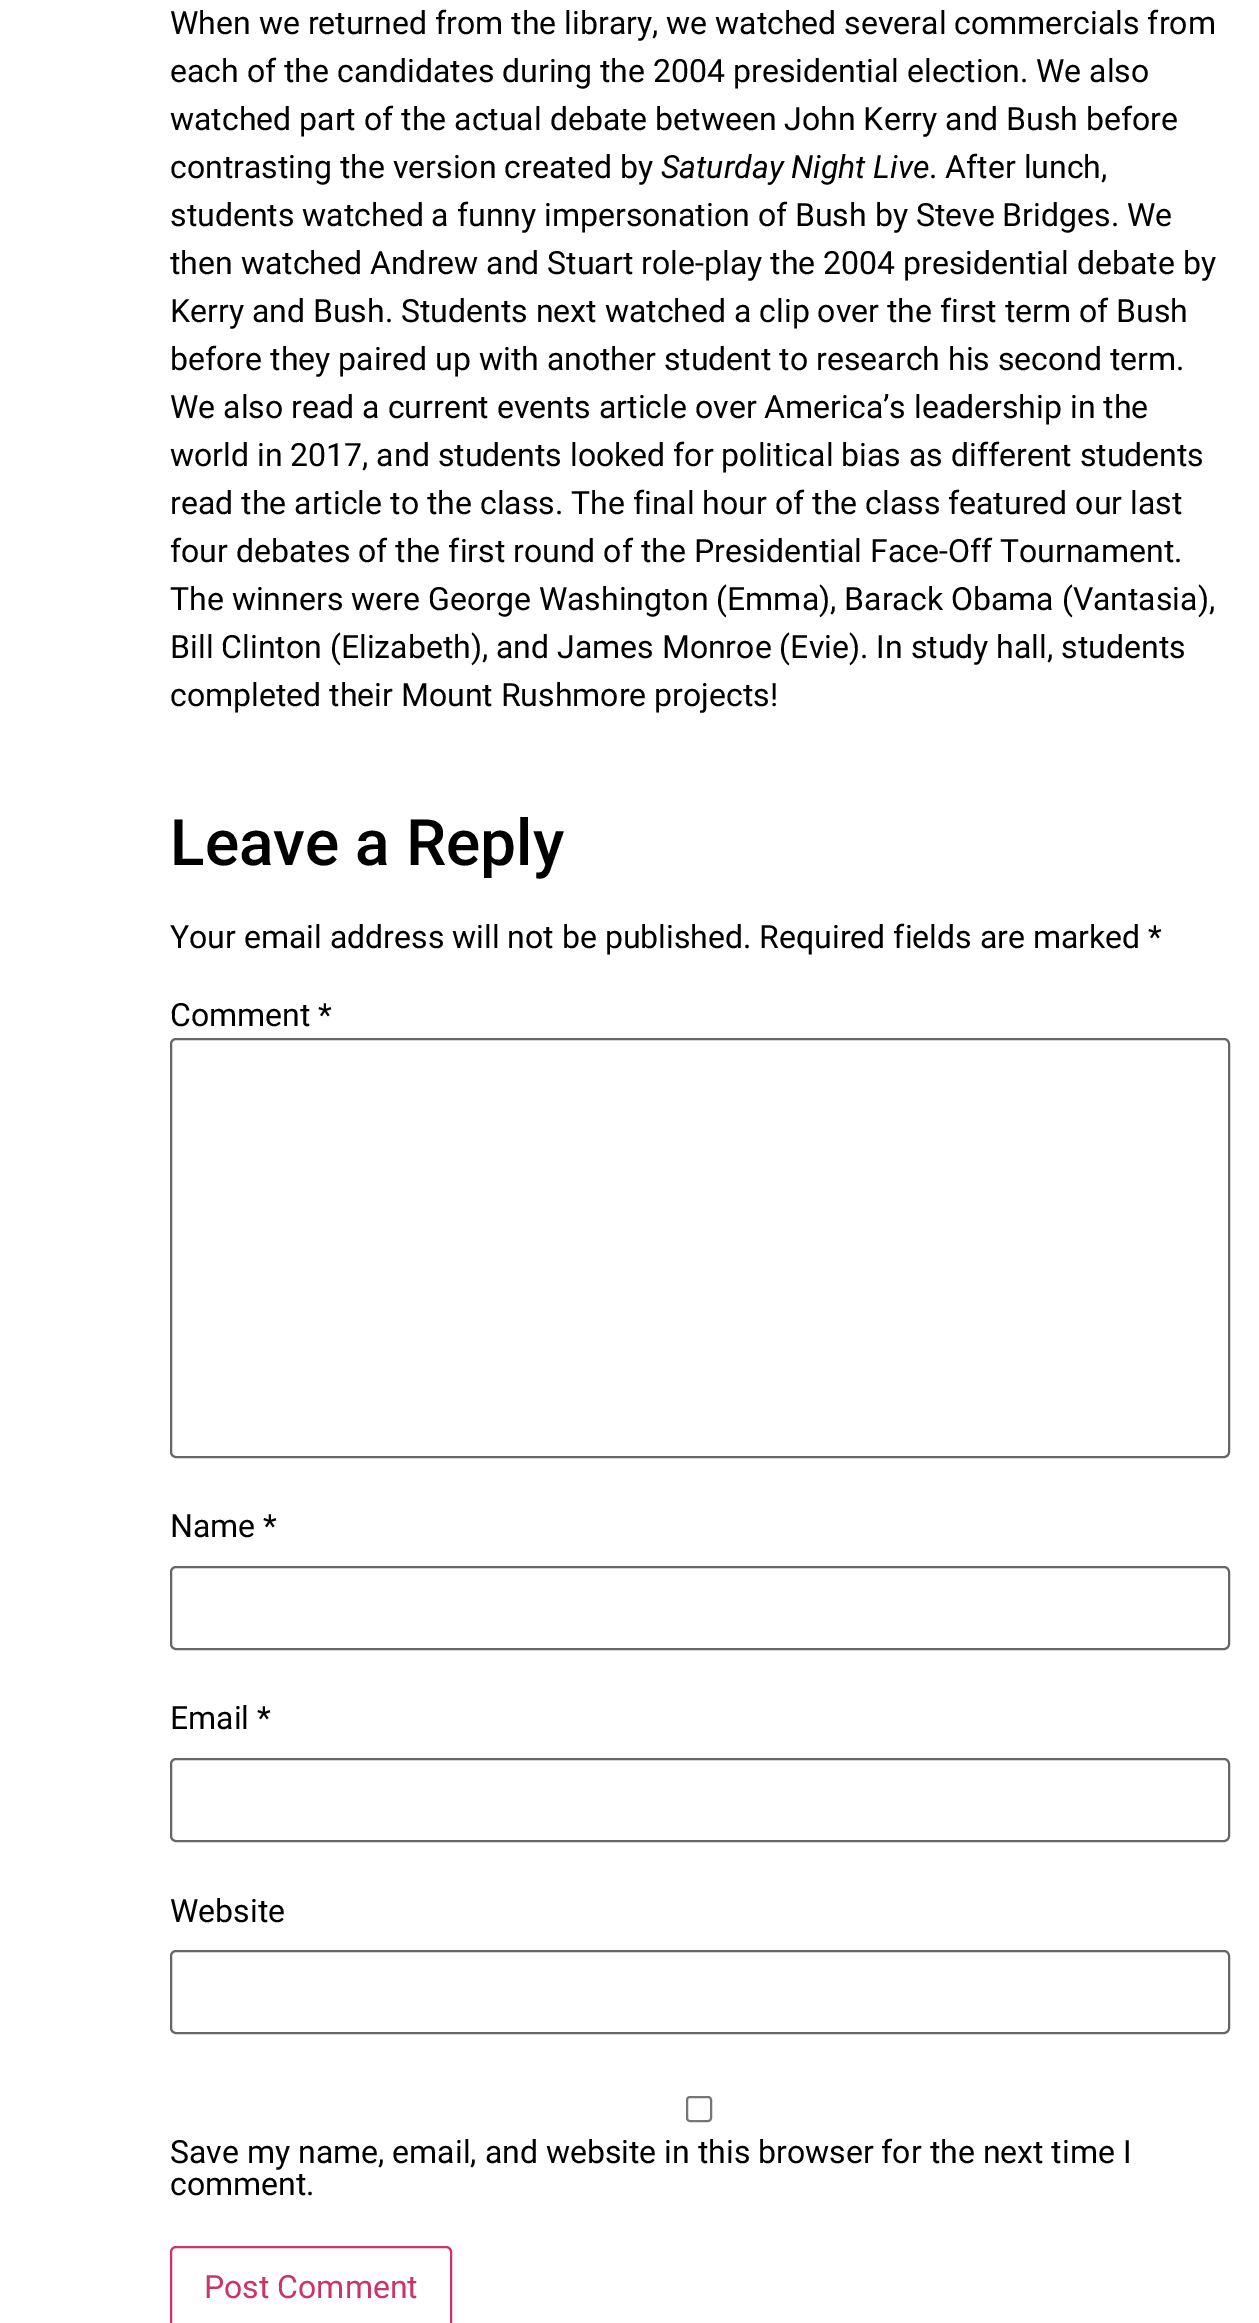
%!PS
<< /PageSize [1259 2323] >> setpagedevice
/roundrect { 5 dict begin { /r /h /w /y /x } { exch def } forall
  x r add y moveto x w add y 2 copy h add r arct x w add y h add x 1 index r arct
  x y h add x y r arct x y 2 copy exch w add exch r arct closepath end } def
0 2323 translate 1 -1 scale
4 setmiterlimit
1 setgray
0 0 1259 2323 rectfill
/Roboto-Regular [32 0 0 -32 0 0] selectfont
0 setgray
170 34 moveto (When we returned from the library, we watched several commercials from) show
170 82 moveto (each of the candidates during the 2004 presidential election. We also) show
170 130 moveto (watched part of the actual debate between John Kerry and Bush before) show
170 178 moveto (contrasting the version created by) show
/Roboto-Italic [32 0 0 -32 0 0] selectfont
661 178 moveto (Saturday Night Live) show
/Roboto-Regular [32 0 0 -32 0 0] selectfont
929 178 moveto (. After lunch,) show
170 226 moveto (students watched a funny impersonation of Bush by Steve Bridges. We) show
170 274 moveto (then watched Andrew and Stuart role-play the 2004 presidential debate by) show
170 322 moveto (Kerry and Bush. Students next watched a clip over the first term of Bush) show
170 370 moveto (before they paired up with another student to research his second term.) show
170 418 moveto (We also read a current events article over America’s leadership in the) show
170 466 moveto (world in 2017, and students looked for political bias as different students) show
170 514 moveto (read the article to the class. The final hour of the class featured our last) show
170 562 moveto (four debates of the first round of the Presidential Face-Off Tournament.) show
170 610 moveto (The winners were George Washington \(Emma\), Barack Obama \(Vantasia\),) show
170 658 moveto (Bill Clinton \(Elizabeth\), and James Monroe \(Evie\). In study hall, students) show
170 706 moveto (completed their Mount Rushmore projects!) show
/Roboto-Medium [64 0 0 -64 0 0] selectfont
170 865 moveto (Leave a Reply) show
/Roboto-Regular [32 0 0 -32 0 0] selectfont
170 948 moveto (Your email address will not be published. Required fields are marked *) show
170 1026 moveto (Comment *) show
0.4 setgray
2 setlinewidth
171 1039 1058 418 5 roundrect stroke
0 setgray
170 1537 moveto (Name *) show
0.4 setgray
171 1567 1058 82 5 roundrect stroke
0 setgray
170 1729 moveto (Email *) show
0.4 setgray
171 1759 1058 82 5 roundrect stroke
0 setgray
170 1922 moveto (Website) show
0.4 setgray
171 1951 1058 82 5 roundrect stroke
0.463 setgray
687 2097 24 24 3 roundrect stroke
0 setgray
170 2163 moveto (Save my name, email, and website in this browser for the next time I) show
170 2195 moveto (comment.) show
0.8 0.2 0.4 setrgbcolor
171 2247 280 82 5 roundrect stroke
204 2298 moveto (Post Comment) show
showpage
